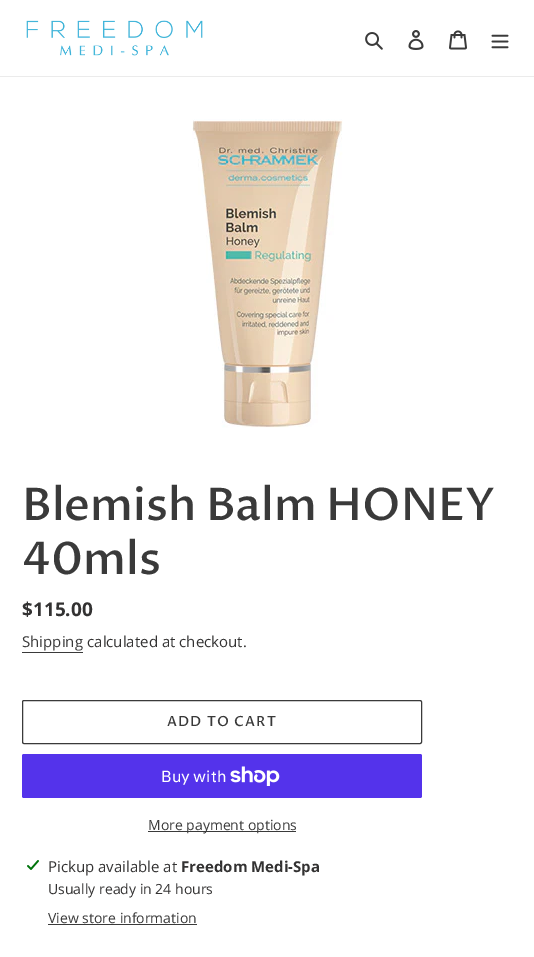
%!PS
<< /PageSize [534 957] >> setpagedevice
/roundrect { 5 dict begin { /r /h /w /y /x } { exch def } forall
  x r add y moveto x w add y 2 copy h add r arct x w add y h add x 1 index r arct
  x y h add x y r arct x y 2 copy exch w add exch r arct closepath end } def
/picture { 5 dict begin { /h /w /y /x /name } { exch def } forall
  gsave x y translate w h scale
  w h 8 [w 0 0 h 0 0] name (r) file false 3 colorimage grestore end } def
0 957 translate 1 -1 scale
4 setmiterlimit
1 setgray
0 0 534 957 rectfill
0.922 setgray
0 76 534 1 rectfill
(img1.rgb) 26 20 177 36 picture
(img2.rgb) 365 32 18 18 picture
(img3.rgb) 408 30 16 20 picture
(img4.rgb) 449 30 18 20 picture
(img5.rgb) 491 34 18 15 picture
(img6.rgb) 192 119 151 309 picture
/ProzaLibre-Medium [45 0 0 -45 0 0] selectfont
0.227 setgray
22 520 moveto (Blemish Balm HONEY) show
22 574 moveto (40mls) show
/OpenSans-Bold [19 0 0 -19 0 0] selectfont
0.2 0.196 0.196 setrgbcolor
22 616 moveto ($115.00) show
/OpenSans-Regular [15 0 0 -15 0 0] selectfont
0.227 setgray
22 647 moveto (Shipping) show
22 652 61 1 rectfill
0.2 0.196 0.196 setrgbcolor
87 647 moveto (calculated at checkout.) show
0.227 setgray
22.5 700.5 399 43 1.5 roundrect stroke
/ProzaLibre-Medium [14 0 0 -14 0 0] selectfont
167 726 moveto 1.1 0 (ADD TO CART) ashow
0.329 0.2 0.922 setrgbcolor
22 754 400 44 2 roundrect fill
/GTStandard-Regular [16 0 0 -16 0 0] selectfont
1 setgray
161 782 moveto (Buy with) show
(img7.rgb) 230 766 50 20 picture
0.227 setgray
148 831 148 1 rectfill
/OpenSans-Regular [14 0 0 -14 0 0] selectfont
148 830 moveto (More payment options) show
(img8.rgb) 27 860 12 10 picture
/OpenSans-Regular [15 0 0 -15 0 0] selectfont
0.2 0.196 0.196 setrgbcolor
48 872 moveto (Pickup available at) show
/OpenSans-Bold [15 0 0 -15 0 0] selectfont
181 872 moveto (Freedom Medi-Spa) show
/OpenSans-Regular [14 0 0 -14 0 0] selectfont
48 894 moveto (Usually ready in 24 hours) show
0.227 setgray
48 923 moveto (View store information) show
48 924 149 1 rectfill
showpage
